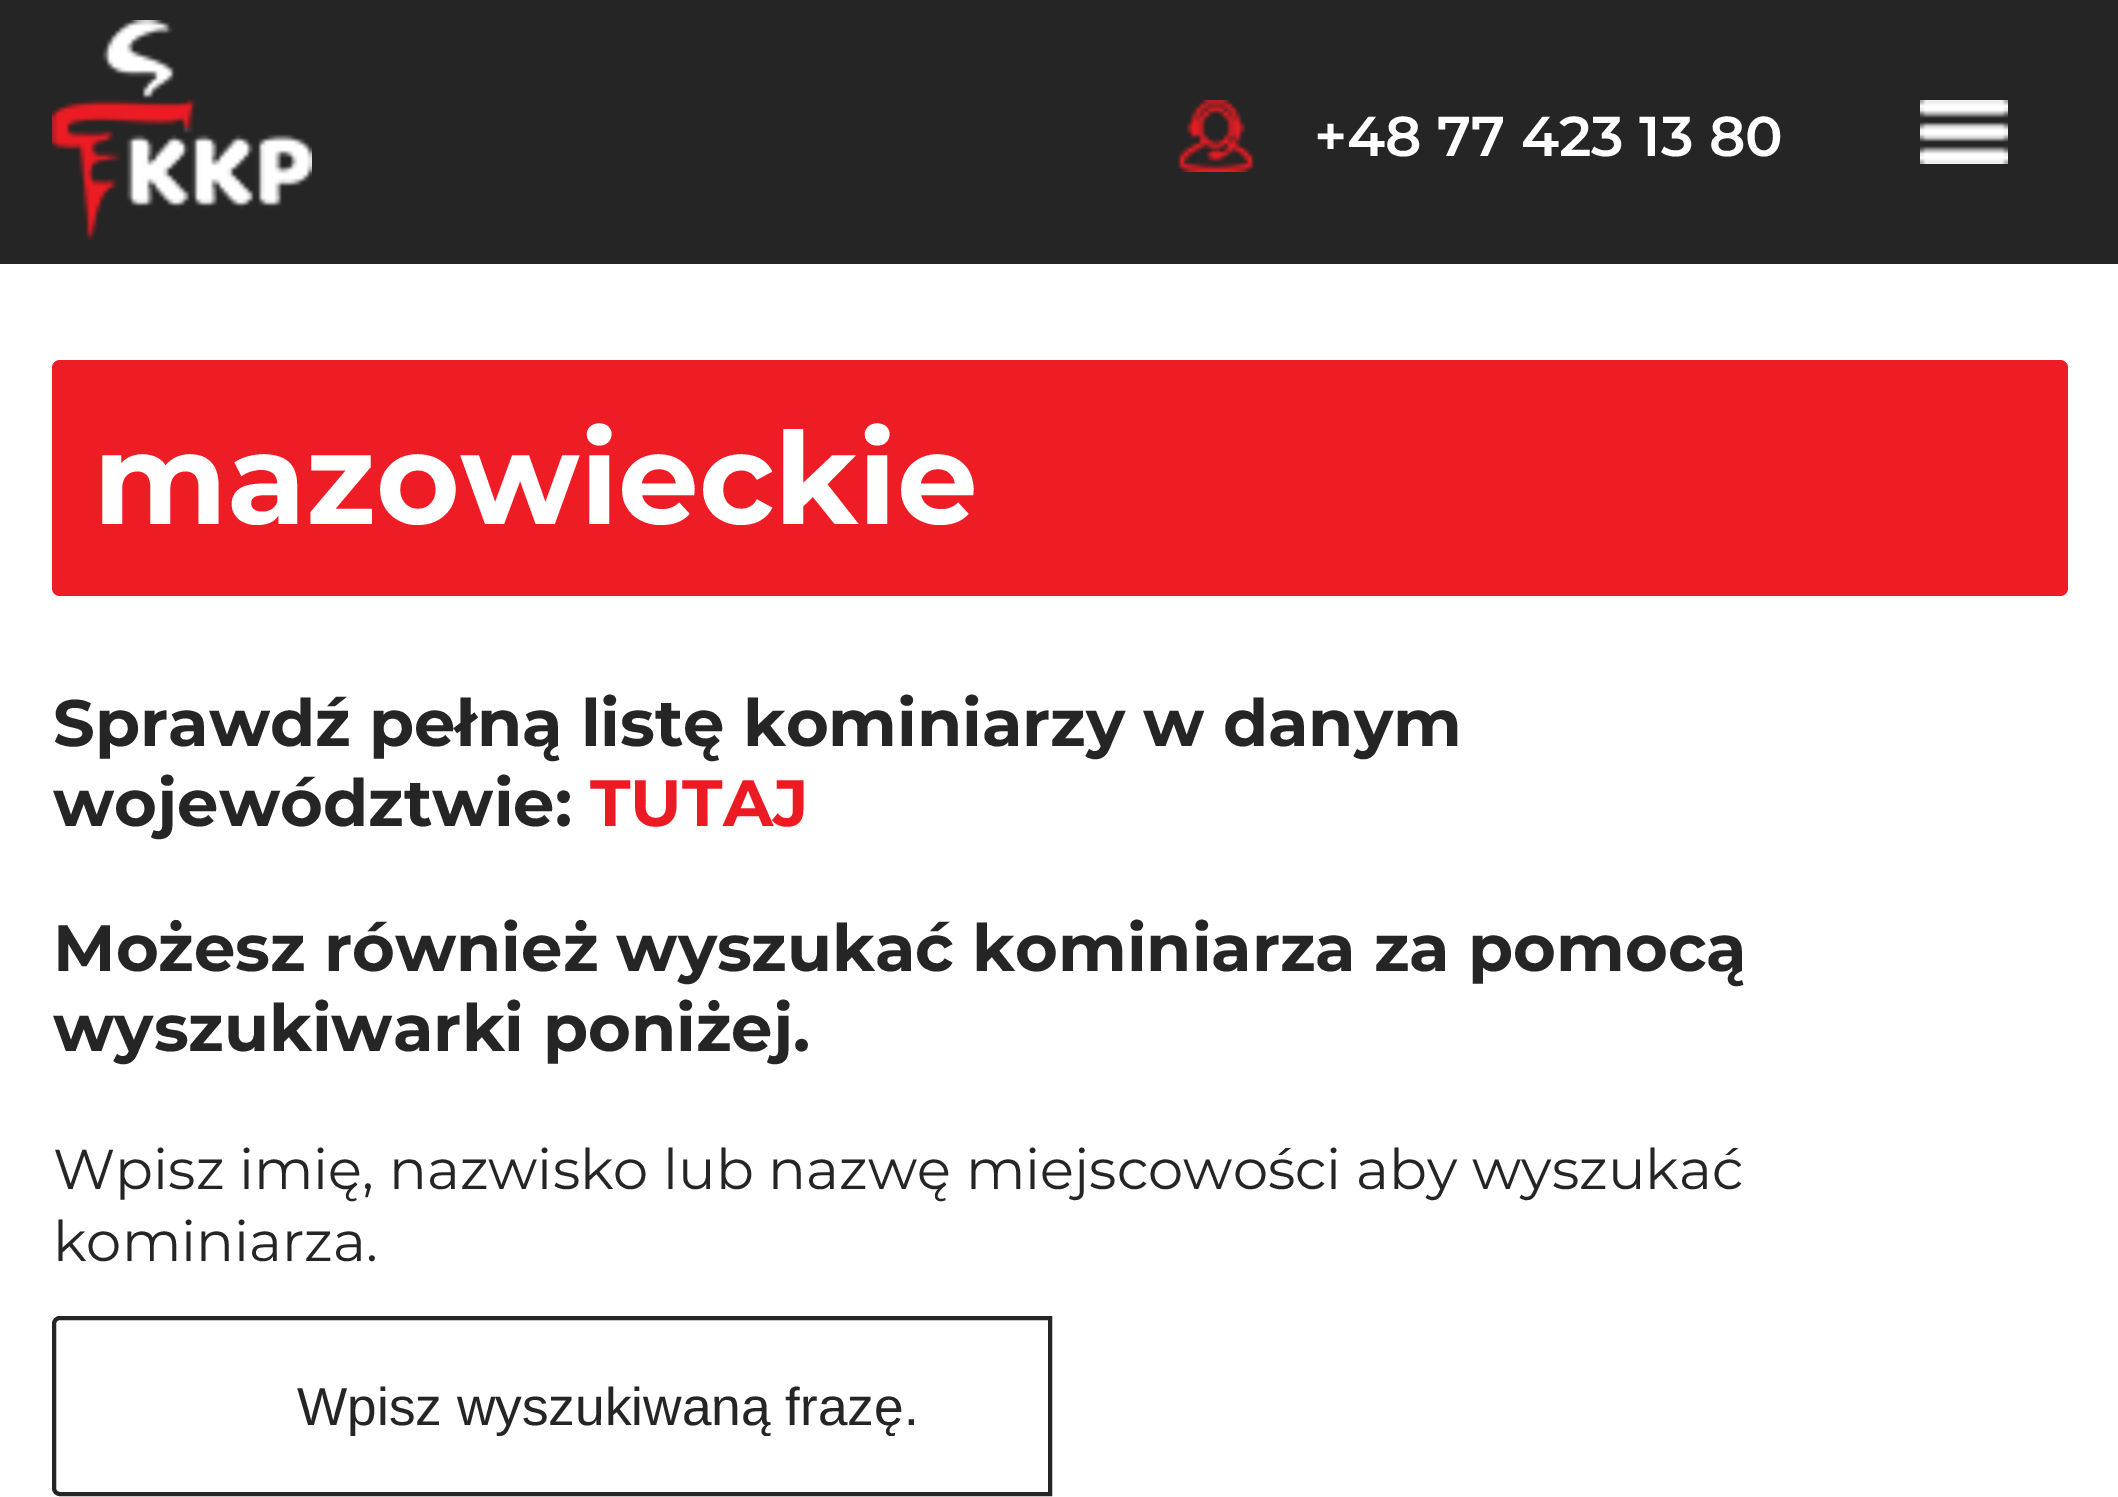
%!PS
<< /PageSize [2118 1497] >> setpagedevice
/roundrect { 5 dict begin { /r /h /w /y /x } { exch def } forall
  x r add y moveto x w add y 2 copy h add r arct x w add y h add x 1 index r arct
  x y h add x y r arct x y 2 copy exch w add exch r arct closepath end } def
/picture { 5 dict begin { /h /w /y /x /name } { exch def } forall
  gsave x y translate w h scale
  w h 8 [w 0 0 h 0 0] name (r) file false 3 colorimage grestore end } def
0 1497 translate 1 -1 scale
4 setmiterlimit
1 setgray
0 0 2118 1497 rectfill
0.145 setgray
0 0 2118 264 rectfill
(img1.rgb) 52 20 260 220 picture
(img2.rgb) 1178 100 76 72 picture
/Montserrat-SemiBold [56 0 0 -56 0 0] selectfont
1 setgray
1314 156 moveto (+48 77 423 13 80) show
(img3.rgb) 1920 100 88 64 picture
0.933 0.11 0.145 setrgbcolor
52 360 2016 236 8 roundrect fill
/Montserrat-Bold [128 0 0 -128 0 0] selectfont
1 setgray
93 524 moveto (mazowieckie) show
/Montserrat-Bold [65.5 0 0 -65.5 0 0] selectfont
0.145 setgray
53 746 moveto -0.5 0 32 (Sprawdź pełną listę kominiarzy w danym) widthshow
53 826 moveto (województwie:) show
0.925 0.106 0.137 setrgbcolor
590 826 moveto (TUTAJ) show
0.145 setgray
53 971 moveto -0.5 0 32 (Możesz również wyszukać kominiarza za pomocą) widthshow
53 1051 moveto (wyszukiwarki poniżej.) show
/Montserrat-Regular [56 0 0 -56 0 0] selectfont
53 1189 moveto (Wpisz imię, nazwisko lub nazwę miejscowości aby wyszukać) show
53 1261 moveto (kominiarza.) show
4 setlinewidth
newpath 60 1318 moveto 1050 1318 lineto 1050 1494 lineto 60 1494 lineto 56.5 1494 54 1491.5 54 1488 curveto 54 1324 lineto 54 1320.5 56.5 1318 60 1318 curveto closepath stroke
gsave
176 1376 748 60 rectclip
/LiberationSans-Regular [53.25 0 0 -53.25 0 0] selectfont
297 1425 moveto (Wpisz wyszukiwaną frazę.) show
grestore
showpage
